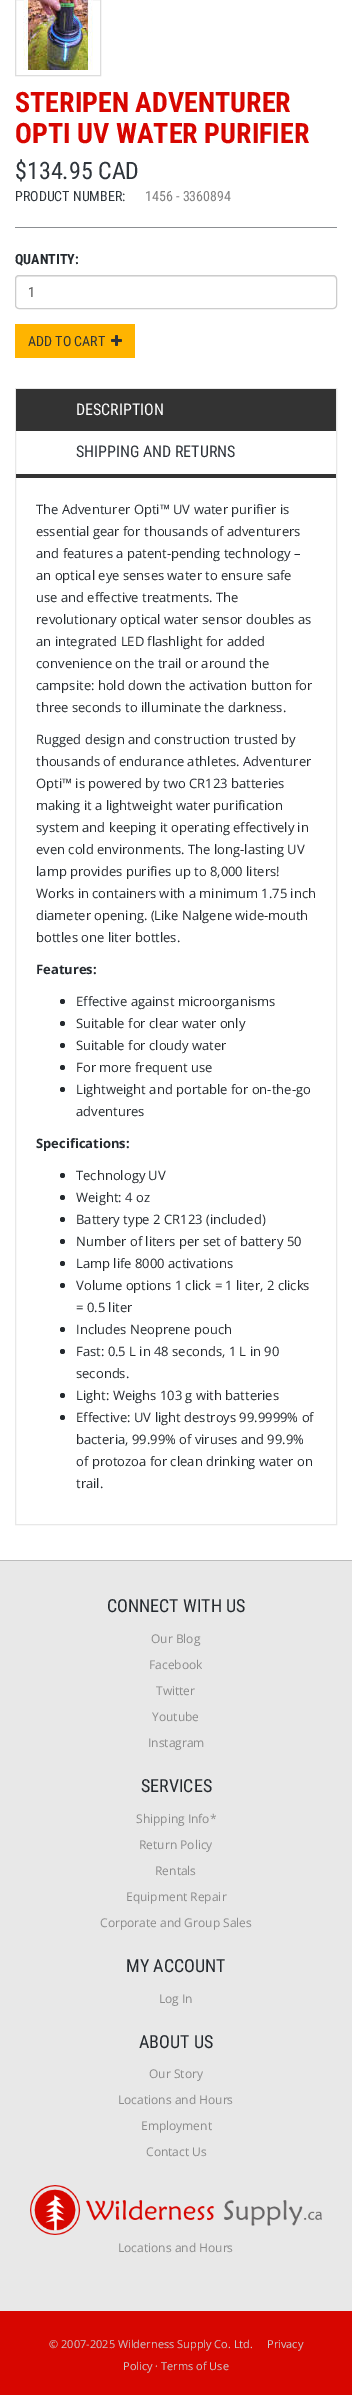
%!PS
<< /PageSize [352 2395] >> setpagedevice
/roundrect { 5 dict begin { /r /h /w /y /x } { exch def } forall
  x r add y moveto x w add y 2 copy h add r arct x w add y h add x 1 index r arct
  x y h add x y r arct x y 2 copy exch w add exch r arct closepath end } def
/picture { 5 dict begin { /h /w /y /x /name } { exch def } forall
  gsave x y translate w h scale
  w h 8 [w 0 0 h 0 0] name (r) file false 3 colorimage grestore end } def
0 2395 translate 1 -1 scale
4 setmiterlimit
1 setgray
0 0 352 2395 rectfill
0.867 setgray
15.5 -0.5 85 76 rectstroke
(img1.rgb) 23 0 70 70 picture
/RobotoCondensed-Bold [28 0 0 -28 0 0] selectfont
0.843 0.024 0 setrgbcolor
15 112 moveto (STERIPEN ADVENTURER) show
15 143 moveto (OPTI UV WATER PURIFIER) show
/RobotoCondensed-Regular [24 0 0 -24 0 0] selectfont
0.184 0.208 0.231 setrgbcolor
15 179 moveto ($134.95 CAD) show
/RobotoCondensed-Regular [14 0 0 -14 0 0] selectfont
15 201 moveto (PRODUCT NUMBER:) show
0.502 setgray
145 201 moveto (1456 - 3360894) show
0.549 0.561 0.573 setrgbcolor
15 227 322 1 rectfill
/RobotoCondensed-Bold [14 0 0 -14 0 0] selectfont
0.145 0.165 0.184 setrgbcolor
15 264 moveto (QUANTITY:) show
0.925 setgray
newpath 19 277 moveto 333 277 lineto 335 277 336 278 336 280 curveto 335 277 lineto 334 276 lineto 19 276 lineto 17 276 16 278 16 280 curveto 16 278 17 277 19 277 curveto closepath fill
0.8 setgray
15.5 275.5 321 33 3.5 roundrect stroke
/RobotoCondensed-Regular [14 0 0 -14 0 0] selectfont
0.333 setgray
28 297 moveto (1) show
1 0.706 0 setrgbcolor
15 324 120 34 rectfill
0.184 0.208 0.231 setrgbcolor
28 346 moveto (ADD TO CART) show
(img2.rgb) 111 335 11 11 picture
0.91 setgray
15.5 388.5 321 1136 rectstroke
0.2 setgray
16 474 320 4 rectfill
16 389 320 42 rectfill
/RobotoCondensed-Regular [16 0 0 -16 0 0] selectfont
1 setgray
76 415 moveto (DESCRIPTION) show
0.184 0.208 0.231 setrgbcolor
76 457 moveto (SHIPPING AND RETURNS) show
/OpenSans-Regular [13 0 0 -13 0 0] selectfont
0.145 0.165 0.184 setrgbcolor
36 514 moveto (The Adventurer Opti™ UV water purifier is) show
36 536 moveto (essential gear for thousands of adventurers) show
36 558 moveto (and features a patent-pending technology –) show
36 580 moveto (an optical eye senses water to ensure safe) show
36 602 moveto (use and effective treatments. The) show
36 624 moveto (revolutionary optical water sensor doubles as) show
36 646 moveto (an integrated LED flashlight for added) show
36 668 moveto (convenience on the trail or around the) show
36 690 moveto (campsite: hold down the activation button for) show
36 712 moveto (three seconds to illuminate the darkness.) show
36 744 moveto (Rugged design and construction trusted by) show
36 766 moveto (thousands of endurance athletes. Adventurer) show
36 788 moveto (Opti™ is powered by two CR123 batteries) show
36 810 moveto (making it a lightweight water purification) show
36 832 moveto (system and keeping it operating effectively in) show
36 854 moveto (even cold environments. The long-lasting UV) show
36 876 moveto (lamp provides purifies up to 8,000 liters!) show
36 898 moveto (Works in containers with a minimum 1.75 inch) show
36 920 moveto (diameter opening. \(Like Nalgene wide-mouth) show
36 942 moveto (bottles one liter bottles.) show
/OpenSans-Bold [13 0 0 -13 0 0] selectfont
36 974 moveto (Features:) show
newpath 62.5 1001.5 2.5 0 360 arc closepath fill
/OpenSans-Regular [13 0 0 -13 0 0] selectfont
76 1006 moveto (Effective against microorganisms) show
newpath 62.5 1023.5 2.5 0 360 arc closepath fill
76 1028 moveto (Suitable for clear water only) show
newpath 62.5 1045.5 2.5 0 360 arc closepath fill
76 1050 moveto (Suitable for cloudy water) show
newpath 62.5 1067.5 2.5 0 360 arc closepath fill
76 1072 moveto (For more frequent use) show
newpath 62.5 1089.5 2.5 0 360 arc closepath fill
76 1094 moveto (Lightweight and portable for on-the-go) show
76 1116 moveto (adventures) show
/OpenSans-Bold [13 0 0 -13 0 0] selectfont
36 1148 moveto (Specifications:) show
newpath 62.5 1175.5 2.5 0 360 arc closepath fill
/OpenSans-Regular [13 0 0 -13 0 0] selectfont
76 1180 moveto (Technology UV) show
newpath 62.5 1197.5 2.5 0 360 arc closepath fill
76 1202 moveto (Weight: 4 oz) show
newpath 62.5 1219.5 2.5 0 360 arc closepath fill
76 1224 moveto (Battery type 2 CR123 \(included\)) show
newpath 62.5 1241.5 2.5 0 360 arc closepath fill
76 1246 moveto (Number of liters per set of battery 50) show
newpath 62.5 1263.5 2.5 0 360 arc closepath fill
76 1268 moveto (Lamp life 8000 activations) show
newpath 62.5 1285.5 2.5 0 360 arc closepath fill
76 1290 moveto (Volume options 1 click = 1 liter, 2 clicks) show
76 1312 moveto (= 0.5 liter) show
newpath 62.5 1329.5 2.5 0 360 arc closepath fill
76 1334 moveto (Includes Neoprene pouch) show
newpath 62.5 1351.5 2.5 0 360 arc closepath fill
76 1356 moveto (Fast: 0.5 L in 48 seconds, 1 L in 90) show
76 1378 moveto (seconds.) show
newpath 62.5 1395.5 2.5 0 360 arc closepath fill
76 1400 moveto (Light: Weighs 103 g with batteries) show
newpath 62.5 1417.5 2.5 0 360 arc closepath fill
76 1422 moveto (Effective: UV light destroys 99.9999% of) show
76 1444 moveto (bacteria, 99.99% of viruses and 99.9%) show
76 1466 moveto (of protozoa for clean drinking water on) show
76 1488 moveto (trail.) show
0.91 setgray
0 1561 352 750 rectfill
0.737 setgray
0 1560 352 1 rectfill
/RobotoCondensed-Regular [18 0 0 -18 0 0] selectfont
0.145 0.165 0.184 setrgbcolor
107 1612 moveto (CONNECT WITH US) show
/OpenSans-Regular [12 0 0 -12 0 0] selectfont
0.545 setgray
151 1643 moveto (Our Blog) show
149 1669 moveto (Facebook) show
156 1695 moveto (Twitter) show
152 1721 moveto (Youtube) show
148 1747 moveto (Instagram) show
/RobotoCondensed-Regular [18 0 0 -18 0 0] selectfont
0.145 0.165 0.184 setrgbcolor
141 1792 moveto (SERVICES) show
/OpenSans-Regular [12 0 0 -12 0 0] selectfont
0.545 setgray
136 1823 moveto (Shipping Info*) show
139 1849 moveto (Return Policy) show
155 1875 moveto (Rentals) show
126 1901 moveto (Equipment Repair) show
100 1927 moveto (Corporate and Group Sales) show
/RobotoCondensed-Regular [18 0 0 -18 0 0] selectfont
0.145 0.165 0.184 setrgbcolor
126 1972 moveto (MY ACCOUNT) show
/OpenSans-Regular [12 0 0 -12 0 0] selectfont
0.545 setgray
159 2003 moveto (Log In) show
/RobotoCondensed-Regular [18 0 0 -18 0 0] selectfont
0.145 0.165 0.184 setrgbcolor
139 2048 moveto (ABOUT US) show
/OpenSans-Regular [12 0 0 -12 0 0] selectfont
0.545 setgray
149 2078 moveto (Our Story) show
118 2104 moveto (Locations and Hours) show
141 2130 moveto (Employment) show
146 2156 moveto (Contact Us) show
(img3.rgb) 30 2185 292 50 picture
118 2252 moveto (Locations and Hours) show
0.843 0.024 0 setrgbcolor
0 2311 352 84 rectfill
/OpenSans-Regular [11 0 0 -11 0 0] selectfont
0.8 setgray
49 2348 moveto (© 2007-2025 Wilderness Supply Co. Ltd.) show
267 2348 moveto (Privacy) show
123 2370 moveto (Policy · Terms of Use) show
showpage
